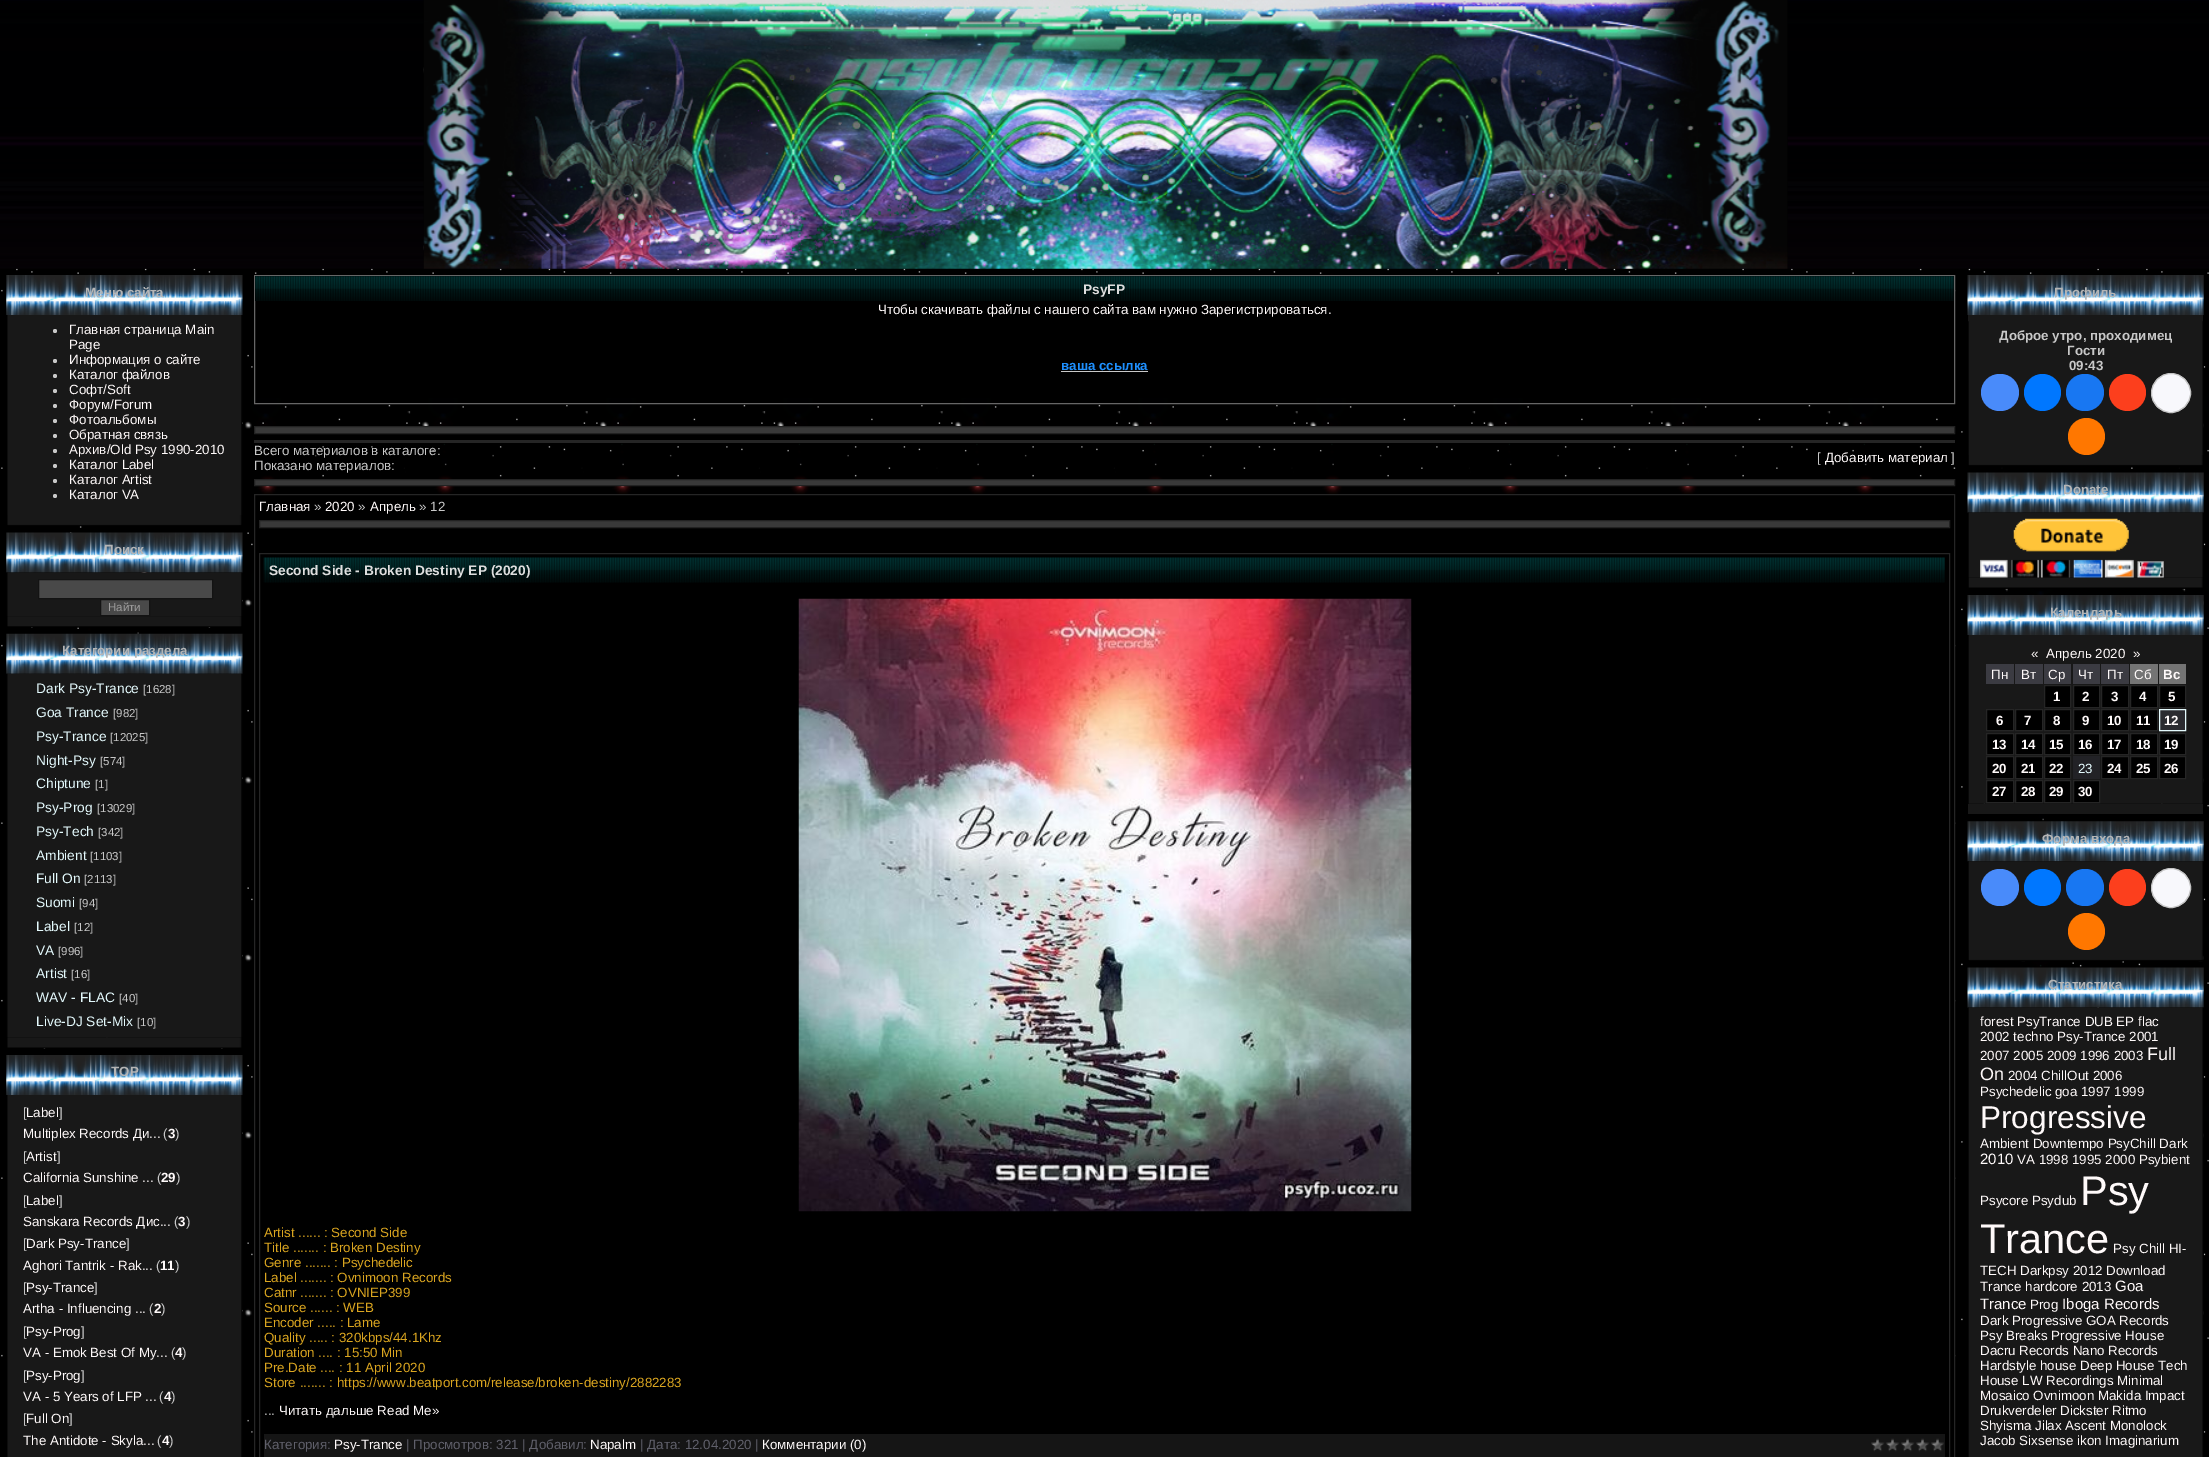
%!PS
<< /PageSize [2209 1457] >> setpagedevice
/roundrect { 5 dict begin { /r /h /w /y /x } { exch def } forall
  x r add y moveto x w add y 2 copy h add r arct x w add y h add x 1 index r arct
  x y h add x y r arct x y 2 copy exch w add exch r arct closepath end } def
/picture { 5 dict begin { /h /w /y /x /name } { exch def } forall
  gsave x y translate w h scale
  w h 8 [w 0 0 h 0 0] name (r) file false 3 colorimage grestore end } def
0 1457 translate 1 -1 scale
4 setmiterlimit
0 setgray
0 0 2209 1457 rectfill
(img1.rgb) 1 0 2208 1457 picture
(img2.rgb) 0 0 424 269 picture
(img4.rgb) 1787 0 422 269 picture
(img3.rgb) 423 0 1365 269 picture
(img5.rgb) 6 275 237 40 picture
/LiberationSans-Bold [13.35 0 0 -13.35 0 0] selectfont
0.71 setgray
85 297 moveto (Меню сайта) show
(img6.rgb) 7 315 236 200 picture
0.784 setgray
newpath 55 331 2 0 360 arc closepath fill
/LiberationSans-Regular [13.35 0 0 -13.35 0 0] selectfont
1 0.98 0.98 setrgbcolor
69 334 moveto (Главная страница Main) show
69 349 moveto (Page) show
0.784 setgray
newpath 55 361 2 0 360 arc closepath fill
1 0.98 0.98 setrgbcolor
69 364 moveto (Информация о сайте) show
0.784 setgray
newpath 55 376 2 0 360 arc closepath fill
1 0.98 0.98 setrgbcolor
69 379 moveto (Каталог файлов) show
0.784 setgray
newpath 55 391 2 0 360 arc closepath fill
1 0.98 0.98 setrgbcolor
69 394 moveto (Софт/Soft) show
0.784 setgray
newpath 55 406 2 0 360 arc closepath fill
1 0.98 0.98 setrgbcolor
69 409 moveto (Форум/Forum) show
0.784 setgray
newpath 55 421 2 0 360 arc closepath fill
1 0.98 0.98 setrgbcolor
69 424 moveto (Фотоальбомы) show
0.784 setgray
newpath 55 436 2 0 360 arc closepath fill
1 0.98 0.98 setrgbcolor
69 439 moveto (Обратная связь) show
0.784 setgray
newpath 55 451 2 0 360 arc closepath fill
1 0.98 0.98 setrgbcolor
69 454 moveto (Архив/Old Psy 1990-2010) show
0.784 setgray
newpath 55 466 2 0 360 arc closepath fill
1 0.98 0.98 setrgbcolor
69 469 moveto (Каталог Label) show
0.784 setgray
newpath 55 481 2 0 360 arc closepath fill
1 0.98 0.98 setrgbcolor
69 484 moveto (Каталог Artist) show
0.784 setgray
newpath 55 496 2 0 360 arc closepath fill
1 0.98 0.98 setrgbcolor
69 499 moveto (Каталог VA) show
(img7.rgb) 7 515 235 12 picture
(img8.rgb) 6 532 237 41 picture
/LiberationSans-Bold [13.35 0 0 -13.35 0 0] selectfont
0.71 setgray
104 554 moveto (Поиск) show
(img9.rgb) 6 572 237 45 picture
0.286 setgray
newpath 38.5 579.5 moveto 212.5 579.5 lineto 212.5 598.5 lineto 38.5 598.5 lineto closepath gsave fill grestore
0.075 setgray
stroke
0.286 setgray
newpath 100.5 599.5 moveto 149.5 599.5 lineto 149.5 615.5 lineto 100.5 615.5 lineto closepath gsave fill grestore
0.075 setgray
stroke
/LiberationSans-Regular [11.5 0 0 -11.5 0 0] selectfont
0.616 0.612 0.612 setrgbcolor
108 611 moveto (Найти) show
(img10.rgb) 7 616 235 12 picture
(img11.rgb) 6 633 237 41 picture
/LiberationSans-Bold [13.35 0 0 -13.35 0 0] selectfont
0.71 setgray
62 655 moveto (Категории раздела) show
(img12.rgb) 6 673 237 365 picture
/LiberationSans-Regular [13.75 0 0 -13.75 0 0] selectfont
0.894 0.98 0.992 setrgbcolor
36 693 moveto (Dark Psy-Trance) show
/LiberationSans-Regular [11.5 0 0 -11.5 0 0] selectfont
0.784 setgray
143 693 moveto ([1628]) show
/LiberationSans-Regular [13.75 0 0 -13.75 0 0] selectfont
0.894 0.98 0.992 setrgbcolor
36 717 moveto (Goa Trance) show
/LiberationSans-Regular [11.5 0 0 -11.5 0 0] selectfont
0.784 setgray
113 717 moveto ([982]) show
/LiberationSans-Regular [13.75 0 0 -13.75 0 0] selectfont
0.894 0.98 0.992 setrgbcolor
36 741 moveto (Psy-Trance) show
/LiberationSans-Regular [11.5 0 0 -11.5 0 0] selectfont
0.784 setgray
110 741 moveto ([12025]) show
/LiberationSans-Regular [13.75 0 0 -13.75 0 0] selectfont
0.894 0.98 0.992 setrgbcolor
36 765 moveto (Night-Psy) show
/LiberationSans-Regular [11.5 0 0 -11.5 0 0] selectfont
0.784 setgray
100 765 moveto ([574]) show
/LiberationSans-Regular [13.75 0 0 -13.75 0 0] selectfont
0.894 0.98 0.992 setrgbcolor
36 788 moveto (Chiptune) show
/LiberationSans-Regular [11.5 0 0 -11.5 0 0] selectfont
0.784 setgray
95 788 moveto ([1]) show
/LiberationSans-Regular [13.75 0 0 -13.75 0 0] selectfont
0.894 0.98 0.992 setrgbcolor
36 812 moveto (Psy-Prog) show
/LiberationSans-Regular [11.5 0 0 -11.5 0 0] selectfont
0.784 setgray
97 812 moveto ([13029]) show
/LiberationSans-Regular [13.75 0 0 -13.75 0 0] selectfont
0.894 0.98 0.992 setrgbcolor
36 836 moveto (Psy-Tech) show
/LiberationSans-Regular [11.5 0 0 -11.5 0 0] selectfont
0.784 setgray
98 836 moveto ([342]) show
/LiberationSans-Regular [13.75 0 0 -13.75 0 0] selectfont
0.894 0.98 0.992 setrgbcolor
36 860 moveto (Ambient) show
/LiberationSans-Regular [11.5 0 0 -11.5 0 0] selectfont
0.784 setgray
90 860 moveto ([1103]) show
/LiberationSans-Regular [13.75 0 0 -13.75 0 0] selectfont
0.894 0.98 0.992 setrgbcolor
36 883 moveto (Full On) show
/LiberationSans-Regular [11.5 0 0 -11.5 0 0] selectfont
0.784 setgray
84 883 moveto ([2113]) show
/LiberationSans-Regular [13.75 0 0 -13.75 0 0] selectfont
0.894 0.98 0.992 setrgbcolor
36 907 moveto (Suomi) show
/LiberationSans-Regular [11.5 0 0 -11.5 0 0] selectfont
0.784 setgray
79 907 moveto ([94]) show
/LiberationSans-Regular [13.75 0 0 -13.75 0 0] selectfont
0.894 0.98 0.992 setrgbcolor
36 931 moveto (Label) show
/LiberationSans-Regular [11.5 0 0 -11.5 0 0] selectfont
0.784 setgray
74 931 moveto ([12]) show
/LiberationSans-Regular [13.75 0 0 -13.75 0 0] selectfont
0.894 0.98 0.992 setrgbcolor
36 955 moveto (VA) show
/LiberationSans-Regular [11.5 0 0 -11.5 0 0] selectfont
0.784 setgray
58 955 moveto ([996]) show
/LiberationSans-Regular [13.75 0 0 -13.75 0 0] selectfont
0.894 0.98 0.992 setrgbcolor
36 978 moveto (Artist) show
/LiberationSans-Regular [11.5 0 0 -11.5 0 0] selectfont
0.784 setgray
71 978 moveto ([16]) show
/LiberationSans-Regular [13.75 0 0 -13.75 0 0] selectfont
0.894 0.98 0.992 setrgbcolor
36 1002 moveto (WAV - FLAC) show
/LiberationSans-Regular [11.5 0 0 -11.5 0 0] selectfont
0.784 setgray
119 1002 moveto ([40]) show
/LiberationSans-Regular [13.75 0 0 -13.75 0 0] selectfont
0.894 0.98 0.992 setrgbcolor
36 1026 moveto (Live-DJ Set-Mix) show
/LiberationSans-Regular [11.5 0 0 -11.5 0 0] selectfont
0.784 setgray
137 1026 moveto ([10]) show
(img13.rgb) 7 1037 235 12 picture
(img14.rgb) 6 1055 237 40 picture
/LiberationSans-Bold [13.35 0 0 -13.35 0 0] selectfont
0.71 setgray
111 1076 moveto (TOP) show
(img15.rgb) 7 1095 236 362 picture
/LiberationSans-Regular [13.35 0 0 -13.35 0 0] selectfont
0.784 setgray
23 1117 moveto ([) show
1 0.98 0.98 setrgbcolor
26 1117 moveto (Label) show
0.784 setgray
59 1117 moveto (]) show
1 0.98 0.98 setrgbcolor
23 1138 moveto (Multiplex Records Ди...) show
0.784 setgray
163 1138 moveto (\() show
/LiberationSans-Bold [13.35 0 0 -13.35 0 0] selectfont
1 0.98 0.98 setrgbcolor
168 1138 moveto (3) show
/LiberationSans-Regular [13.35 0 0 -13.35 0 0] selectfont
0.784 setgray
175 1138 moveto (\)) show
23 1161 moveto ([) show
1 0.98 0.98 setrgbcolor
26 1161 moveto (Artist) show
0.784 setgray
57 1161 moveto (]) show
1 0.98 0.98 setrgbcolor
23 1182 moveto (California Sunshine ...) show
0.784 setgray
157 1182 moveto (\() show
/LiberationSans-Bold [13.35 0 0 -13.35 0 0] selectfont
1 0.98 0.98 setrgbcolor
161 1182 moveto (29) show
/LiberationSans-Regular [13.35 0 0 -13.35 0 0] selectfont
0.784 setgray
176 1182 moveto (\)) show
23 1205 moveto ([) show
1 0.98 0.98 setrgbcolor
26 1205 moveto (Label) show
0.784 setgray
59 1205 moveto (]) show
1 0.98 0.98 setrgbcolor
23 1226 moveto (Sanskara Records Дис...) show
0.784 setgray
174 1226 moveto (\() show
/LiberationSans-Bold [13.35 0 0 -13.35 0 0] selectfont
1 0.98 0.98 setrgbcolor
178 1226 moveto (3) show
/LiberationSans-Regular [13.35 0 0 -13.35 0 0] selectfont
0.784 setgray
186 1226 moveto (\)) show
23 1248 moveto ([) show
1 0.98 0.98 setrgbcolor
26 1248 moveto (Dark Psy-Trance) show
0.784 setgray
126 1248 moveto (]) show
1 0.98 0.98 setrgbcolor
23 1270 moveto (Aghori Tantrik - Rak...) show
0.784 setgray
156 1270 moveto (\() show
/LiberationSans-Bold [13.35 0 0 -13.35 0 0] selectfont
1 0.98 0.98 setrgbcolor
160 1270 moveto (11) show
/LiberationSans-Regular [13.35 0 0 -13.35 0 0] selectfont
0.784 setgray
175 1270 moveto (\)) show
23 1292 moveto ([) show
1 0.98 0.98 setrgbcolor
26 1292 moveto (Psy-Trance) show
0.784 setgray
94 1292 moveto (]) show
1 0.98 0.98 setrgbcolor
23 1313 moveto (Artha - Influencing ...) show
0.784 setgray
149 1313 moveto (\() show
/LiberationSans-Bold [13.35 0 0 -13.35 0 0] selectfont
1 0.98 0.98 setrgbcolor
154 1313 moveto (2) show
/LiberationSans-Regular [13.35 0 0 -13.35 0 0] selectfont
0.784 setgray
161 1313 moveto (\)) show
23 1336 moveto ([) show
1 0.98 0.98 setrgbcolor
26 1336 moveto (Psy-Prog) show
0.784 setgray
81 1336 moveto (]) show
1 0.98 0.98 setrgbcolor
23 1357 moveto (VA - Emok Best Of My...) show
0.784 setgray
171 1357 moveto (\() show
/LiberationSans-Bold [13.35 0 0 -13.35 0 0] selectfont
1 0.98 0.98 setrgbcolor
175 1357 moveto (4) show
/LiberationSans-Regular [13.35 0 0 -13.35 0 0] selectfont
0.784 setgray
182 1357 moveto (\)) show
23 1380 moveto ([) show
1 0.98 0.98 setrgbcolor
26 1380 moveto (Psy-Prog) show
0.784 setgray
81 1380 moveto (]) show
1 0.98 0.98 setrgbcolor
23 1401 moveto (VA - 5 Years of LFP ...) show
0.784 setgray
159 1401 moveto (\() show
/LiberationSans-Bold [13.35 0 0 -13.35 0 0] selectfont
1 0.98 0.98 setrgbcolor
164 1401 moveto (4) show
/LiberationSans-Regular [13.35 0 0 -13.35 0 0] selectfont
0.784 setgray
171 1401 moveto (\)) show
23 1423 moveto ([) show
1 0.98 0.98 setrgbcolor
26 1423 moveto (Full On) show
0.784 setgray
69 1423 moveto (]) show
1 0.98 0.98 setrgbcolor
23 1445 moveto (The Antidote - Skyla...) show
0.784 setgray
157 1445 moveto (\() show
/LiberationSans-Bold [13.35 0 0 -13.35 0 0] selectfont
1 0.98 0.98 setrgbcolor
162 1445 moveto (4) show
/LiberationSans-Regular [13.35 0 0 -13.35 0 0] selectfont
0.784 setgray
169 1445 moveto (\)) show
0 setgray
257 277 1697 121 rectfill
0.4 setgray
254.5 275.5 1700 128 rectstroke
(img16.rgb) 255 276 1699 25 picture
/LiberationSans-Bold [13.75 0 0 -13.75 0 0] selectfont
0.871 setgray
1083 294 moveto (PsyFP) show
/LiberationSans-Regular [13.35 0 0 -13.35 0 0] selectfont
1 0.98 0.98 setrgbcolor
878 314 moveto (Чтобы скачивать файлы с нашего сайта вам нужно Зарегистрироваться.) show
/LiberationSans-Bold [13.35 0 0 -13.35 0 0] selectfont
0.118 0.565 1 setrgbcolor
1061 370 moveto (ваша ссылка) show
0.784 setgray
1061 371 87 1 rectfill
0.224 setgray
newpath 254.5 426.5 moveto 1954.5 426.5 lineto 1954.5 433.5 lineto 254.5 433.5 lineto closepath gsave fill grestore
0.133 setgray
stroke
0.145 setgray
254 440 1701 3 rectfill
/LiberationSans-Regular [13.35 0 0 -13.35 0 0] selectfont
0.784 setgray
254 455 moveto (Всего материалов в каталоге:) show
254 470 moveto (Показано материалов:) show
1817 462 moveto ([) show
1 0.98 0.98 setrgbcolor
1825 462 moveto (Добавить материал) show
0.784 setgray
1951 462 moveto (]) show
0.224 setgray
newpath 254.5 479.5 moveto 1954.5 479.5 lineto 1954.5 485.5 lineto 254.5 485.5 lineto closepath gsave fill grestore
0.133 setgray
stroke
0 setgray
newpath 254.5 494.5 moveto 1954.5 494.5 lineto 1954.5 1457.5 lineto 254.5 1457.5 lineto closepath gsave fill grestore
0.145 setgray
stroke
1 0.98 0.98 setrgbcolor
259 511 moveto (Главная) show
0.784 setgray
314 511 moveto (») show
1 0.98 0.98 setrgbcolor
325 511 moveto (2020) show
0.784 setgray
358 511 moveto (») show
1 0.98 0.98 setrgbcolor
370 511 moveto (Апрель) show
0.784 setgray
419 511 moveto (» 12) show
0.224 setgray
newpath 259.5 520.5 moveto 1949.5 520.5 lineto 1949.5 527.5 lineto 259.5 527.5 lineto closepath gsave fill grestore
0.133 setgray
stroke
0.145 setgray
259.5 553.5 1690 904 rectstroke
(img17.rgb) 263 557 1682 26 picture
/LiberationSans-Bold [13.75 0 0 -13.75 0 0] selectfont
0.871 setgray
269 575 moveto (Second Side - Broken Destiny EP \(2020\)) show
(img18.rgb) 798 598 614 614 picture
/LiberationSans-Regular [13.35 0 0 -13.35 0 0] selectfont
0.855 0.647 0.125 setrgbcolor
264 1237 moveto (Artist ...... : Second Side) show
264 1252 moveto (Title ....... : Broken Destiny) show
264 1267 moveto (Genre ....... : Psychedelic) show
264 1282 moveto (Label ....... : Ovnimoon Records) show
264 1297 moveto (Catnr ....... : OVNIEP399) show
264 1312 moveto (Source ...... : WEB) show
264 1327 moveto (Encoder ..... : Lame) show
264 1342 moveto (Quality ..... : 320kbps/44.1Khz) show
264 1357 moveto (Duration .... : 15:50 Min) show
264 1372 moveto (Pre.Date .... : 11 April 2020) show
264 1387 moveto (Store ....... : https://www.beatport.com/release/broken-destiny/2882283) show
0.784 setgray
264 1415 moveto (...) show
1 0.98 0.98 setrgbcolor
279 1415 moveto (Читать дальше Read Me») show
0.082 setgray
264 1434 1681 23 rectfill
0.376 0.376 0.42 setrgbcolor
264 1449 moveto (Категория:) show
1 0.98 0.98 setrgbcolor
334 1449 moveto (Psy-Trance) show
0.376 0.376 0.42 setrgbcolor
406 1449 moveto (| Просмотров: 321 | Добавил:) show
1 0.98 0.98 setrgbcolor
590 1449 moveto (Napalm) show
0.376 0.376 0.42 setrgbcolor
640 1449 moveto (| Дата: 12.04.2020 |) show
1 0.98 0.98 setrgbcolor
762 1449 moveto (Комментарии \(0\)) show
(img19.rgb) 1871 1438 73 14 picture
(img20.rgb) 1967 275 237 40 picture
/LiberationSans-Bold [13.35 0 0 -13.35 0 0] selectfont
0.71 setgray
2054 297 moveto (Профиль) show
0.094 setgray
1968 315 235 7 rectfill
(img21.rgb) 1968 321 236 134 picture
0.784 setgray
1999 340 moveto (Доброе утро, проходимец) show
2067 355 moveto (Гости) show
2069 370 moveto (09:43) show
0.286 0.545 0.98 setrgbcolor
1981 374 38 37 18.5 roundrect fill
0 0.467 1 setrgbcolor
newpath 2042.5 392.5 18.5 0 360 arc closepath fill
0.094 0.467 0.949 setrgbcolor
2066 374 38 37 18.5 roundrect fill
0.988 0.247 0.114 setrgbcolor
newpath 2127.5 392.5 18.5 0 360 arc closepath fill
0.973 0.973 0.988 setrgbcolor
newpath 2171 393 19.5 0 360 arc closepath gsave fill grestore
0.769 setgray
stroke
1 0.467 0 setrgbcolor
newpath 2086.5 436.5 18.5 0 360 arc closepath fill
(img22.rgb) 1968 455 235 11 picture
(img23.rgb) 1967 472 237 41 picture
0.71 setgray
2063 494 moveto (Donate) show
(img24.rgb) 1968 512 236 66 picture
(img26.rgb) 1968 577 235 12 picture
(img25.rgb) 1980 518 184 60 picture
(img27.rgb) 1967 595 237 40 picture
2050 617 moveto (Календарь) show
(img28.rgb) 1968 635 236 169 picture
/LiberationSans-Regular [13.35 0 0 -13.35 0 0] selectfont
1 0.98 0.98 setrgbcolor
2031 658 moveto («) show
2046 658 moveto (Апрель 2020) show
2133 658 moveto (») show
0.231 0.231 0.259 setrgbcolor
1986 664 28 20 rectfill
1 0.98 0.98 setrgbcolor
1991 679 moveto (Пн) show
0.231 0.231 0.259 setrgbcolor
2015 664 28 20 rectfill
1 0.98 0.98 setrgbcolor
2021 679 moveto (Вт) show
0.231 0.231 0.259 setrgbcolor
2044 664 27 20 rectfill
1 0.98 0.98 setrgbcolor
2048 679 moveto (Ср) show
0.231 0.231 0.259 setrgbcolor
2073 664 27 20 rectfill
1 0.98 0.98 setrgbcolor
2078 679 moveto (Чт) show
0.231 0.231 0.259 setrgbcolor
2101 664 28 20 rectfill
1 0.98 0.98 setrgbcolor
2107 679 moveto (Пт) show
0.455 setgray
2130 664 28 20 rectfill
1 0.98 0.98 setrgbcolor
2134 679 moveto (Сб) show
0.455 setgray
2159 664 27 20 rectfill
/LiberationSans-Bold [13.35 0 0 -13.35 0 0] selectfont
1 0.98 0.98 setrgbcolor
2163 679 moveto (Вс) show
0 setgray
newpath 2044.5 685.5 moveto 2070.5 685.5 lineto 2070.5 707.5 lineto 2044.5 707.5 lineto closepath gsave fill grestore
0.145 setgray
stroke
1 0.98 0.98 setrgbcolor
2053 701 moveto (1) show
0 setgray
newpath 2073.5 685.5 moveto 2099.5 685.5 lineto 2099.5 707.5 lineto 2073.5 707.5 lineto closepath gsave fill grestore
0.145 setgray
stroke
1 0.98 0.98 setrgbcolor
2082 701 moveto (2) show
0 setgray
newpath 2101.5 685.5 moveto 2128.5 685.5 lineto 2128.5 707.5 lineto 2101.5 707.5 lineto closepath gsave fill grestore
0.145 setgray
stroke
1 0.98 0.98 setrgbcolor
2111 701 moveto (3) show
0 setgray
newpath 2130.5 685.5 moveto 2157.5 685.5 lineto 2157.5 707.5 lineto 2130.5 707.5 lineto closepath gsave fill grestore
0.145 setgray
stroke
1 0.98 0.98 setrgbcolor
2139 701 moveto (4) show
0 setgray
newpath 2159.5 685.5 moveto 2185.5 685.5 lineto 2185.5 707.5 lineto 2159.5 707.5 lineto closepath gsave fill grestore
0.145 setgray
stroke
1 0.98 0.98 setrgbcolor
2168 701 moveto (5) show
0 setgray
newpath 1986.5 709.5 moveto 2013.5 709.5 lineto 2013.5 730.5 lineto 1986.5 730.5 lineto closepath gsave fill grestore
0.145 setgray
stroke
1 0.98 0.98 setrgbcolor
1996 725 moveto (6) show
0 setgray
newpath 2015.5 709.5 moveto 2042.5 709.5 lineto 2042.5 730.5 lineto 2015.5 730.5 lineto closepath gsave fill grestore
0.145 setgray
stroke
1 0.98 0.98 setrgbcolor
2024 725 moveto (7) show
0 setgray
newpath 2044.5 709.5 moveto 2070.5 709.5 lineto 2070.5 730.5 lineto 2044.5 730.5 lineto closepath gsave fill grestore
0.145 setgray
stroke
1 0.98 0.98 setrgbcolor
2053 725 moveto (8) show
0 setgray
newpath 2073.5 709.5 moveto 2099.5 709.5 lineto 2099.5 730.5 lineto 2073.5 730.5 lineto closepath gsave fill grestore
0.145 setgray
stroke
1 0.98 0.98 setrgbcolor
2082 725 moveto (9) show
0 setgray
newpath 2101.5 709.5 moveto 2128.5 709.5 lineto 2128.5 730.5 lineto 2101.5 730.5 lineto closepath gsave fill grestore
0.145 setgray
stroke
1 0.98 0.98 setrgbcolor
2107 725 moveto (10) show
0 setgray
newpath 2130.5 709.5 moveto 2157.5 709.5 lineto 2157.5 730.5 lineto 2130.5 730.5 lineto closepath gsave fill grestore
0.145 setgray
stroke
1 0.98 0.98 setrgbcolor
2136 725 moveto (11) show
0.169 0.169 0.188 setrgbcolor
newpath 2159.5 709.5 moveto 2185.5 709.5 lineto 2185.5 730.5 lineto 2159.5 730.5 lineto closepath gsave fill grestore
0.894 0.98 0.992 setrgbcolor
stroke
1 0.98 0.98 setrgbcolor
2164 725 moveto (12) show
0 setgray
newpath 1986.5 733.5 moveto 2013.5 733.5 lineto 2013.5 754.5 lineto 1986.5 754.5 lineto closepath gsave fill grestore
0.145 setgray
stroke
1 0.98 0.98 setrgbcolor
1992 749 moveto (13) show
0 setgray
newpath 2015.5 733.5 moveto 2042.5 733.5 lineto 2042.5 754.5 lineto 2015.5 754.5 lineto closepath gsave fill grestore
0.145 setgray
stroke
1 0.98 0.98 setrgbcolor
2021 749 moveto (14) show
0 setgray
newpath 2044.5 733.5 moveto 2070.5 733.5 lineto 2070.5 754.5 lineto 2044.5 754.5 lineto closepath gsave fill grestore
0.145 setgray
stroke
1 0.98 0.98 setrgbcolor
2049 749 moveto (15) show
0 setgray
newpath 2073.5 733.5 moveto 2099.5 733.5 lineto 2099.5 754.5 lineto 2073.5 754.5 lineto closepath gsave fill grestore
0.145 setgray
stroke
1 0.98 0.98 setrgbcolor
2078 749 moveto (16) show
0 setgray
newpath 2101.5 733.5 moveto 2128.5 733.5 lineto 2128.5 754.5 lineto 2101.5 754.5 lineto closepath gsave fill grestore
0.145 setgray
stroke
1 0.98 0.98 setrgbcolor
2107 749 moveto (17) show
0 setgray
newpath 2130.5 733.5 moveto 2157.5 733.5 lineto 2157.5 754.5 lineto 2130.5 754.5 lineto closepath gsave fill grestore
0.145 setgray
stroke
1 0.98 0.98 setrgbcolor
2136 749 moveto (18) show
0 setgray
newpath 2159.5 733.5 moveto 2185.5 733.5 lineto 2185.5 754.5 lineto 2159.5 754.5 lineto closepath gsave fill grestore
0.145 setgray
stroke
1 0.98 0.98 setrgbcolor
2164 749 moveto (19) show
0 setgray
newpath 1986.5 756.5 moveto 2013.5 756.5 lineto 2013.5 778.5 lineto 1986.5 778.5 lineto closepath gsave fill grestore
0.145 setgray
stroke
1 0.98 0.98 setrgbcolor
1992 773 moveto (20) show
0 setgray
newpath 2015.5 756.5 moveto 2042.5 756.5 lineto 2042.5 778.5 lineto 2015.5 778.5 lineto closepath gsave fill grestore
0.145 setgray
stroke
1 0.98 0.98 setrgbcolor
2021 773 moveto (21) show
0 setgray
newpath 2044.5 756.5 moveto 2070.5 756.5 lineto 2070.5 778.5 lineto 2044.5 778.5 lineto closepath gsave fill grestore
0.145 setgray
stroke
1 0.98 0.98 setrgbcolor
2049 773 moveto (22) show
0.133 0.133 0.149 setrgbcolor
2073 756 27 23 rectfill
/LiberationSans-Regular [13.35 0 0 -13.35 0 0] selectfont
0.894 0.98 0.992 setrgbcolor
2078 773 moveto (23) show
0 setgray
newpath 2101.5 756.5 moveto 2128.5 756.5 lineto 2128.5 778.5 lineto 2101.5 778.5 lineto closepath gsave fill grestore
0.145 setgray
stroke
/LiberationSans-Bold [13.35 0 0 -13.35 0 0] selectfont
1 0.98 0.98 setrgbcolor
2107 773 moveto (24) show
0 setgray
newpath 2130.5 756.5 moveto 2157.5 756.5 lineto 2157.5 778.5 lineto 2130.5 778.5 lineto closepath gsave fill grestore
0.145 setgray
stroke
1 0.98 0.98 setrgbcolor
2136 773 moveto (25) show
0 setgray
newpath 2159.5 756.5 moveto 2185.5 756.5 lineto 2185.5 778.5 lineto 2159.5 778.5 lineto closepath gsave fill grestore
0.145 setgray
stroke
1 0.98 0.98 setrgbcolor
2164 773 moveto (26) show
0 setgray
newpath 1986.5 780.5 moveto 2013.5 780.5 lineto 2013.5 802.5 lineto 1986.5 802.5 lineto closepath gsave fill grestore
0.145 setgray
stroke
1 0.98 0.98 setrgbcolor
1992 796 moveto (27) show
0 setgray
newpath 2015.5 780.5 moveto 2042.5 780.5 lineto 2042.5 802.5 lineto 2015.5 802.5 lineto closepath gsave fill grestore
0.145 setgray
stroke
1 0.98 0.98 setrgbcolor
2021 796 moveto (28) show
0 setgray
newpath 2044.5 780.5 moveto 2070.5 780.5 lineto 2070.5 802.5 lineto 2044.5 802.5 lineto closepath gsave fill grestore
0.145 setgray
stroke
1 0.98 0.98 setrgbcolor
2049 796 moveto (29) show
0 setgray
newpath 2073.5 780.5 moveto 2099.5 780.5 lineto 2099.5 802.5 lineto 2073.5 802.5 lineto closepath gsave fill grestore
0.145 setgray
stroke
1 0.98 0.98 setrgbcolor
2078 796 moveto (30) show
0.094 setgray
1968 804 235 10 rectfill
(img29.rgb) 1967 821 237 41 picture
0.71 setgray
2042 843 moveto (Форма входа) show
(img30.rgb) 1968 861 236 89 picture
0.286 0.545 0.98 setrgbcolor
1981 869 38 37 18.5 roundrect fill
0 0.467 1 setrgbcolor
newpath 2042.5 887.5 18.5 0 360 arc closepath fill
0.094 0.467 0.949 setrgbcolor
2066 869 38 37 18.5 roundrect fill
0.988 0.247 0.114 setrgbcolor
newpath 2127.5 887.5 18.5 0 360 arc closepath fill
0.973 0.973 0.988 setrgbcolor
newpath 2171 888 19.5 0 360 arc closepath gsave fill grestore
0.769 setgray
stroke
1 0.467 0 setrgbcolor
newpath 2086.5 931.5 18.5 0 360 arc closepath fill
(img31.rgb) 1968 950 236 12 picture
(img32.rgb) 1967 967 237 41 picture
0.71 setgray
2048 989 moveto (Статистика) show
(img33.rgb) 1968 1007 236 450 picture
/LiberationSans-Regular [13.35 0 0 -13.35 0 0] selectfont
1 0.98 0.98 setrgbcolor
1980 1026 moveto (forest PsyTrance DUB EP flac) show
1980 1041 moveto (2002 techno Psy-Trance 2001) show
1980 1060 moveto (2007 2005 2009 1996 2003) show
/LiberationSans-Regular [18 0 0 -18 0 0] selectfont
2147 1060 moveto (Full) show
1980 1080 moveto (On) show
/LiberationSans-Regular [13.35 0 0 -13.35 0 0] selectfont
2008 1080 moveto (2004 ChillOut 2006) show
1980 1096 moveto (Psychedelic goa 1997 1999) show
/LiberationSans-Regular [31.5 0 0 -31.5 0 0] selectfont
1980 1128 moveto (Progressive) show
/LiberationSans-Regular [13.35 0 0 -13.35 0 0] selectfont
1980 1148 moveto (Ambient Downtempo PsyChill Dark) show
/LiberationSans-Regular [15 0 0 -15 0 0] selectfont
1980 1164 moveto (2010) show
/LiberationSans-Regular [13.35 0 0 -13.35 0 0] selectfont
2017 1164 moveto (VA 1998 1995 2000 Psybient) show
1980 1205 moveto (Psycore Psydub) show
/LiberationSans-Regular [41.5 0 0 -41.5 0 0] selectfont
2080 1205 moveto (Psy) show
1980 1253 moveto (Trance) show
/LiberationSans-Regular [13.35 0 0 -13.35 0 0] selectfont
2113 1253 moveto (Psy Chill HI-) show
1980 1275 moveto (TECH Darkpsy 2012 Download) show
1980 1291 moveto (Trance hardcore 2013) show
/LiberationSans-Regular [15 0 0 -15 0 0] selectfont
2115 1291 moveto (Goa) show
1980 1309 moveto (Trance) show
/LiberationSans-Regular [13.35 0 0 -13.35 0 0] selectfont
2030 1309 moveto (Prog) show
/LiberationSans-Regular [15 0 0 -15 0 0] selectfont
2062 1309 moveto (Iboga Records) show
/LiberationSans-Regular [13.35 0 0 -13.35 0 0] selectfont
1980 1325 moveto (Dark Progressive GOA Records) show
1980 1340 moveto (Psy Breaks Progressive House) show
1980 1355 moveto (Dacru Records Nano Records) show
1980 1370 moveto (Hardstyle house Deep House Tech) show
1980 1385 moveto (House LW Recordings Minimal) show
1980 1400 moveto (Mosaico Ovnimoon Makida Impact) show
1980 1415 moveto (Drukverdeler Dickster Ritmo) show
1980 1430 moveto (Shyisma Jilax Ascent Monolock) show
1980 1445 moveto (Jacob Sixsense ikon Imaginarium) show
showpage
